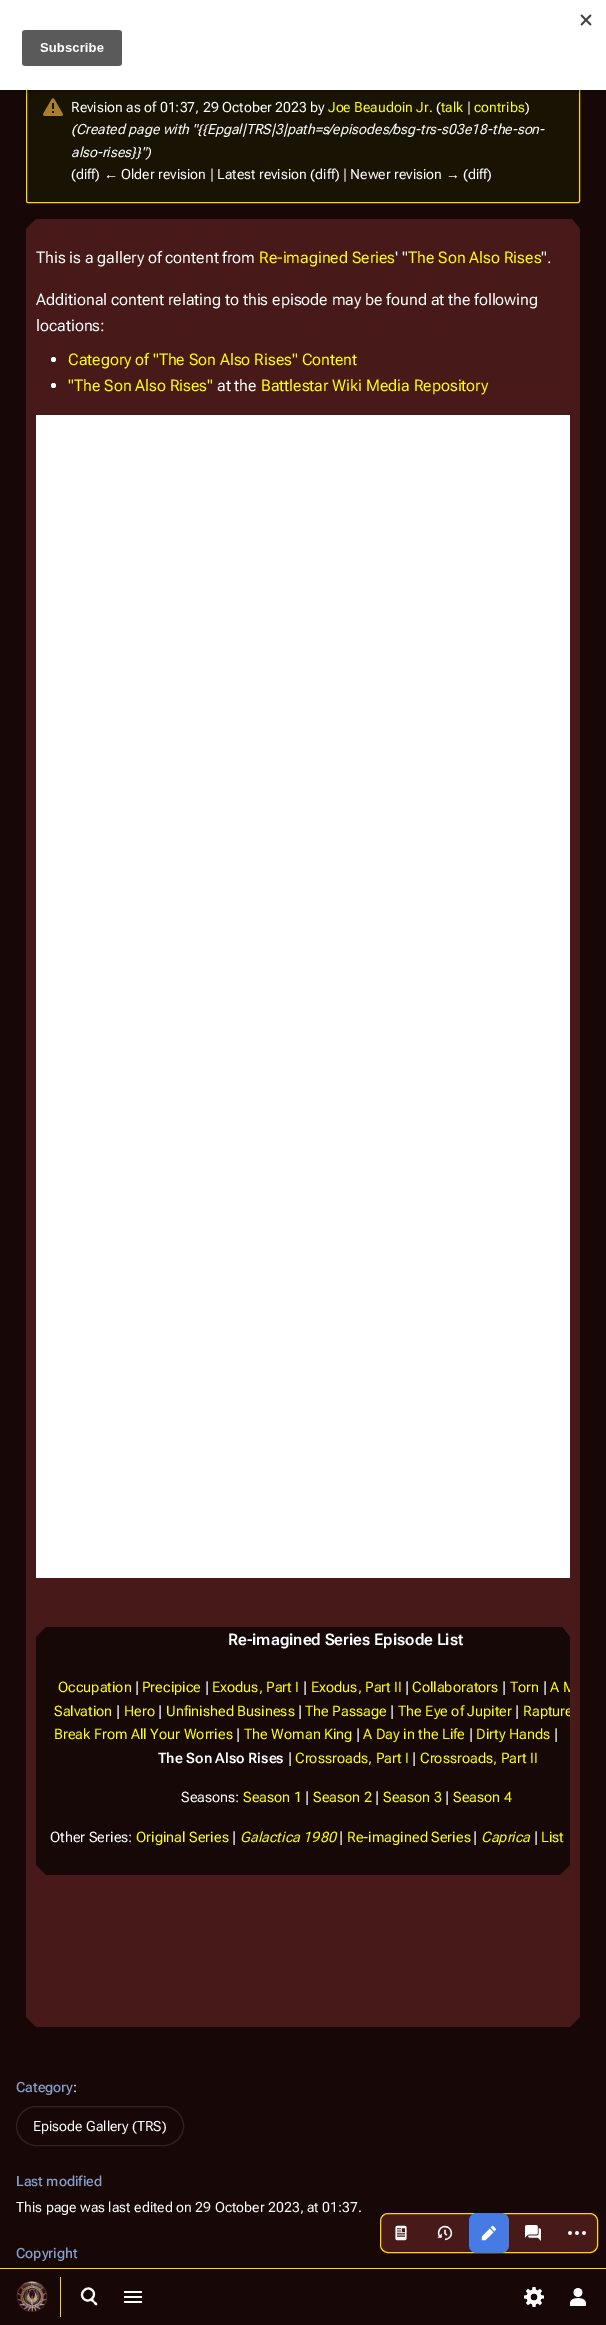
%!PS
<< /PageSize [606 2325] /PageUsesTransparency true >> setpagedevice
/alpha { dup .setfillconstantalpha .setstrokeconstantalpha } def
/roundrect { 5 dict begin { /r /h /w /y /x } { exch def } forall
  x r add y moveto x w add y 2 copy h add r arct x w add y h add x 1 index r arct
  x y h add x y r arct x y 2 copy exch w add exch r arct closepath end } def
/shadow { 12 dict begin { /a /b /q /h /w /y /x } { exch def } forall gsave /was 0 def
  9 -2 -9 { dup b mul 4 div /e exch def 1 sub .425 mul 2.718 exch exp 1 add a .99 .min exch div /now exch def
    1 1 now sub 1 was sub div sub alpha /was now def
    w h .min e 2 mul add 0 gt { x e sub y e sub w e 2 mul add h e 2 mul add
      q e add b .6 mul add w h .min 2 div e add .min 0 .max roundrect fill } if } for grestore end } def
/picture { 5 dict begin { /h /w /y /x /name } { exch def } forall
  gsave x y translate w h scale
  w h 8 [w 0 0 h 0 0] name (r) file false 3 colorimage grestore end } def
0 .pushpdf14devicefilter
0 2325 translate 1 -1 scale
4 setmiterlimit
0.09 0.031 0.027 setrgbcolor
0 0 606 2325 rectfill
0.094 0.075 0.008 setrgbcolor
26.5 79.5 553 123 1.5 roundrect gsave fill grestore
1 0.843 0 setrgbcolor
stroke
(img2.rgb) 43 98 20 18 picture
0 setgray
0 3 606 90 0 3 0.2 shadow
1 setgray
0 0 606 90 rectfill
(img1.rgb) 22 14 570 52 picture
/RobotoFlex-Regular [14 0 0 -14 0 0] selectfont
71 112 moveto (Revision as of 01:37, 29 October 2023 by) show
1 1 0 setrgbcolor
328 112 moveto (Joe Beaudoin Jr.) show
1 setgray
436 112 moveto (\() show
1 1 0 setrgbcolor
441 112 moveto (talk) show
1 setgray
467 112 moveto (|) show
1 1 0 setrgbcolor
474 112 moveto (contribs) show
1 setgray
525 112 moveto (\)) show
/RobotoFlex-Italic [14 0 0 -14 0 0] selectfont
71 134 moveto (\(Created page with "{{Epgal|TRS|3|path=s/episodes/bsg-trs-s03e18-the-son-) show
71 157 moveto (also-rises}}"\)) show
/RobotoFlex-Regular [14 0 0 -14 0 0] selectfont
71 179 moveto (\(diff\)) show
/LiberationSans-Regular [14 0 0 -14 0 0] selectfont
104 179 moveto (←) show
/RobotoFlex-Regular [14 0 0 -14 0 0] selectfont
121 179 moveto (Older revision | Latest revision \(diff\) | Newer revision) show
/LiberationSans-Regular [14 0 0 -14 0 0] selectfont
446 179 moveto (→) show
/RobotoFlex-Regular [14 0 0 -14 0 0] selectfont
463 179 moveto (\(diff\)) show
0.278 0.098 0.098 setrgbcolor
newpath 26 229 moveto 26 2017 lineto 36 2027 lineto 570 2027 lineto 580 2017 lineto 580 229 lineto 572 219 lineto 36 219 lineto closepath fill
/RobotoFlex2-Regular [16 0 0 -16 0 0] selectfont
1 setgray
36 263 moveto (This is a gallery of content from) show
1 1 0 setrgbcolor
259 263 moveto (Re-imagined Series) show
1 setgray
395 263 moveto (' ") show
1 1 0 setrgbcolor
408 263 moveto (The Son Also Rises) show
1 setgray
541 263 moveto (".) show
36 305 moveto (Additional content relating to this episode may be found at the following) show
36 331 moveto (locations:) show
newpath 53.5 359.5 2.5 0 360 arc closepath fill
1 1 0 setrgbcolor
68 365 moveto (Category of "The Son Also Rises" Content) show
1 setgray
newpath 53.5 385.5 2.5 0 360 arc closepath fill
1 1 0 setrgbcolor
68 391 moveto ("The Son Also Rises") show
1 setgray
217 391 moveto (at the) show
1 1 0 setrgbcolor
261 391 moveto (Battlestar Wiki Media Repository) show
1 setgray
36 415 534 1163 rectfill
0.086 0.031 0.027 setrgbcolor
newpath 36 1637 moveto 36 1865 lineto 46 1875 lineto 560 1875 lineto 570 1865 lineto 570 1637 lineto 562 1627 lineto 46 1627 lineto closepath fill
/RobotoFlex-SemiBold [16 0 0 -16 0 0] selectfont
1 setgray
228 1645 moveto (Re-imagined Series Episode List) show
/RobotoFlex-Regular [14.4 0 0 -14.4 0 0] selectfont
1 1 0 setrgbcolor
58 1692 moveto (Occupation) show
1 setgray
135 1692 moveto (|) show
1 1 0 setrgbcolor
142 1692 moveto (Precipice) show
1 setgray
205 1692 moveto (|) show
1 1 0 setrgbcolor
212 1692 moveto (Exodus, Part I) show
1 setgray
303 1692 moveto (|) show
1 1 0 setrgbcolor
311 1692 moveto (Exodus, Part II) show
1 setgray
405 1692 moveto (|) show
1 1 0 setrgbcolor
412 1692 moveto (Collaborators) show
1 setgray
502 1692 moveto (|) show
1 1 0 setrgbcolor
510 1692 moveto (Torn) show
1 setgray
543 1692 moveto (|) show
gsave
newpath 36 1637 moveto 46 1627 lineto 562 1627 lineto 570 1637 lineto 570 1865 lineto 560 1875 lineto 46 1875 lineto 36 1865 lineto closepath clip newpath
1 1 0 setrgbcolor
550 1692 moveto (A M) show
grestore
1 1 0 setrgbcolor
54 1716 moveto (Salvation) show
1 setgray
116 1716 moveto (|) show
1 1 0 setrgbcolor
124 1716 moveto (Hero) show
1 setgray
158 1716 moveto (|) show
1 1 0 setrgbcolor
166 1716 moveto (Unfinished Business) show
1 setgray
298 1716 moveto (|) show
1 1 0 setrgbcolor
305 1716 moveto (The Passage) show
1 setgray
390 1716 moveto (|) show
1 1 0 setrgbcolor
398 1716 moveto (The Eye of Jupiter) show
1 setgray
515 1716 moveto (|) show
gsave
newpath 36 1637 moveto 46 1627 lineto 562 1627 lineto 570 1637 lineto 570 1865 lineto 560 1875 lineto 46 1875 lineto 36 1865 lineto closepath clip newpath
1 1 0 setrgbcolor
523 1716 moveto (Rapture) show
grestore
1 1 0 setrgbcolor
54 1739 moveto (Break From All Your Worries) show
1 setgray
236 1739 moveto (|) show
1 1 0 setrgbcolor
244 1739 moveto (The Woman King) show
1 setgray
356 1739 moveto (|) show
1 1 0 setrgbcolor
363 1739 moveto (A Day in the Life) show
1 setgray
469 1739 moveto (|) show
1 1 0 setrgbcolor
476 1739 moveto (Dirty Hands) show
1 setgray
554 1739 moveto (|) show
/RobotoFlex2-SemiBold [14.4 0 0 -14.4 0 0] selectfont
158 1763 moveto (The Son Also Rises) show
/RobotoFlex-Regular [14.4 0 0 -14.4 0 0] selectfont
288 1763 moveto (|) show
1 1 0 setrgbcolor
295 1763 moveto (Crossroads, Part I) show
1 setgray
412 1763 moveto (|) show
1 1 0 setrgbcolor
420 1763 moveto (Crossroads, Part II) show
1 setgray
181 1802 moveto (Seasons:) show
1 1 0 setrgbcolor
243 1802 moveto (Season 1) show
1 setgray
305 1802 moveto (|) show
1 1 0 setrgbcolor
313 1802 moveto (Season 2) show
1 setgray
375 1802 moveto (|) show
1 1 0 setrgbcolor
383 1802 moveto (Season 3) show
1 setgray
445 1802 moveto (|) show
1 1 0 setrgbcolor
453 1802 moveto (Season 4) show
1 setgray
50 1842 moveto (Other Series:) show
1 1 0 setrgbcolor
136 1842 moveto (Original Series) show
1 setgray
232 1842 moveto (|) show
/RobotoFlex-Italic [14.4 0 0 -14.4 0 0] selectfont
1 1 0 setrgbcolor
240 1842 moveto (Galactica 1980) show
/RobotoFlex-Regular [14.4 0 0 -14.4 0 0] selectfont
1 setgray
339 1842 moveto (|) show
1 1 0 setrgbcolor
347 1842 moveto (Re-imagined Series) show
1 setgray
473 1842 moveto (|) show
/RobotoFlex-Italic [14.4 0 0 -14.4 0 0] selectfont
1 1 0 setrgbcolor
481 1842 moveto (Caprica) show
/RobotoFlex-Regular [14.4 0 0 -14.4 0 0] selectfont
1 setgray
534 1842 moveto (|) show
1 1 0 setrgbcolor
541 1842 moveto (List) show
/RobotoFlex-Medium [14 0 0 -14 0 0] selectfont
0.529 0.624 0.796 setrgbcolor
16 2092 moveto (Category) show
/RobotoFlex-Regular [14 0 0 -14 0 0] selectfont
1 setgray
73 2092 moveto (:) show
0.192 0.137 0.133 setrgbcolor
16.5 2106.5 167 39 19.5 roundrect stroke
1 setgray
33 2131 moveto (Episode Gallery \(TRS\)) show
/RobotoFlex-Medium [14 0 0 -14 0 0] selectfont
0.529 0.624 0.796 setrgbcolor
16 2186 moveto (Last modified) show
/RobotoFlex-Regular [14 0 0 -14 0 0] selectfont
1 setgray
16 2212 moveto (This page was last edited on 29 October 2023, at 01:37.) show
/RobotoFlex-Medium [14 0 0 -14 0 0] selectfont
0.529 0.624 0.796 setrgbcolor
16 2258 moveto (Copyright) show
0.282 0.098 0.098 setrgbcolor
380.5 2213.5 217 39 7.5 roundrect gsave fill grestore
1 0.843 0 setrgbcolor
stroke
(img3.rgb) 395 2225 12 16 picture
(img4.rgb) 437 2225 16 16 picture
0.275 0.482 0.89 setrgbcolor
469 2213 40 40 8 roundrect fill
(img5.rgb) 481 2225 16 16 picture
(img6.rgb) 525 2225 16 16 picture
(img7.rgb) 568 2231 18 4 picture
1 0.843 0 setrgbcolor
0 2268 606 1 rectfill
60 2277 1 40 rectfill
(img8.rgb) 16 2281 32 31 picture
1 setgray
newpath 91 2299 moveto 92.5 2298 94 2300.5 94.5 2301.5 curveto 95.5 2302 98 2303.5 97 2305 curveto 95.5 2306 94 2303.5 93.5 2302.5 curveto 92.5 2302 90 2300.5 91 2299 curveto closepath fill
2 setlinewidth
newpath 84 2290.5 moveto 89.5 2284.5 98 2293 92 2298.5 curveto 86.5 2304.5 78 2296 84 2290.5 curveto closepath stroke
124 2291 18 2 1 roundrect fill
124 2296 18 2 1 roundrect fill
124 2301 18 2 1 roundrect fill
(img9.rgb) 524 2287 20 20 picture
(img10.rgb) 570 2288 16 18 picture
.poppdf14devicefilter showpage
